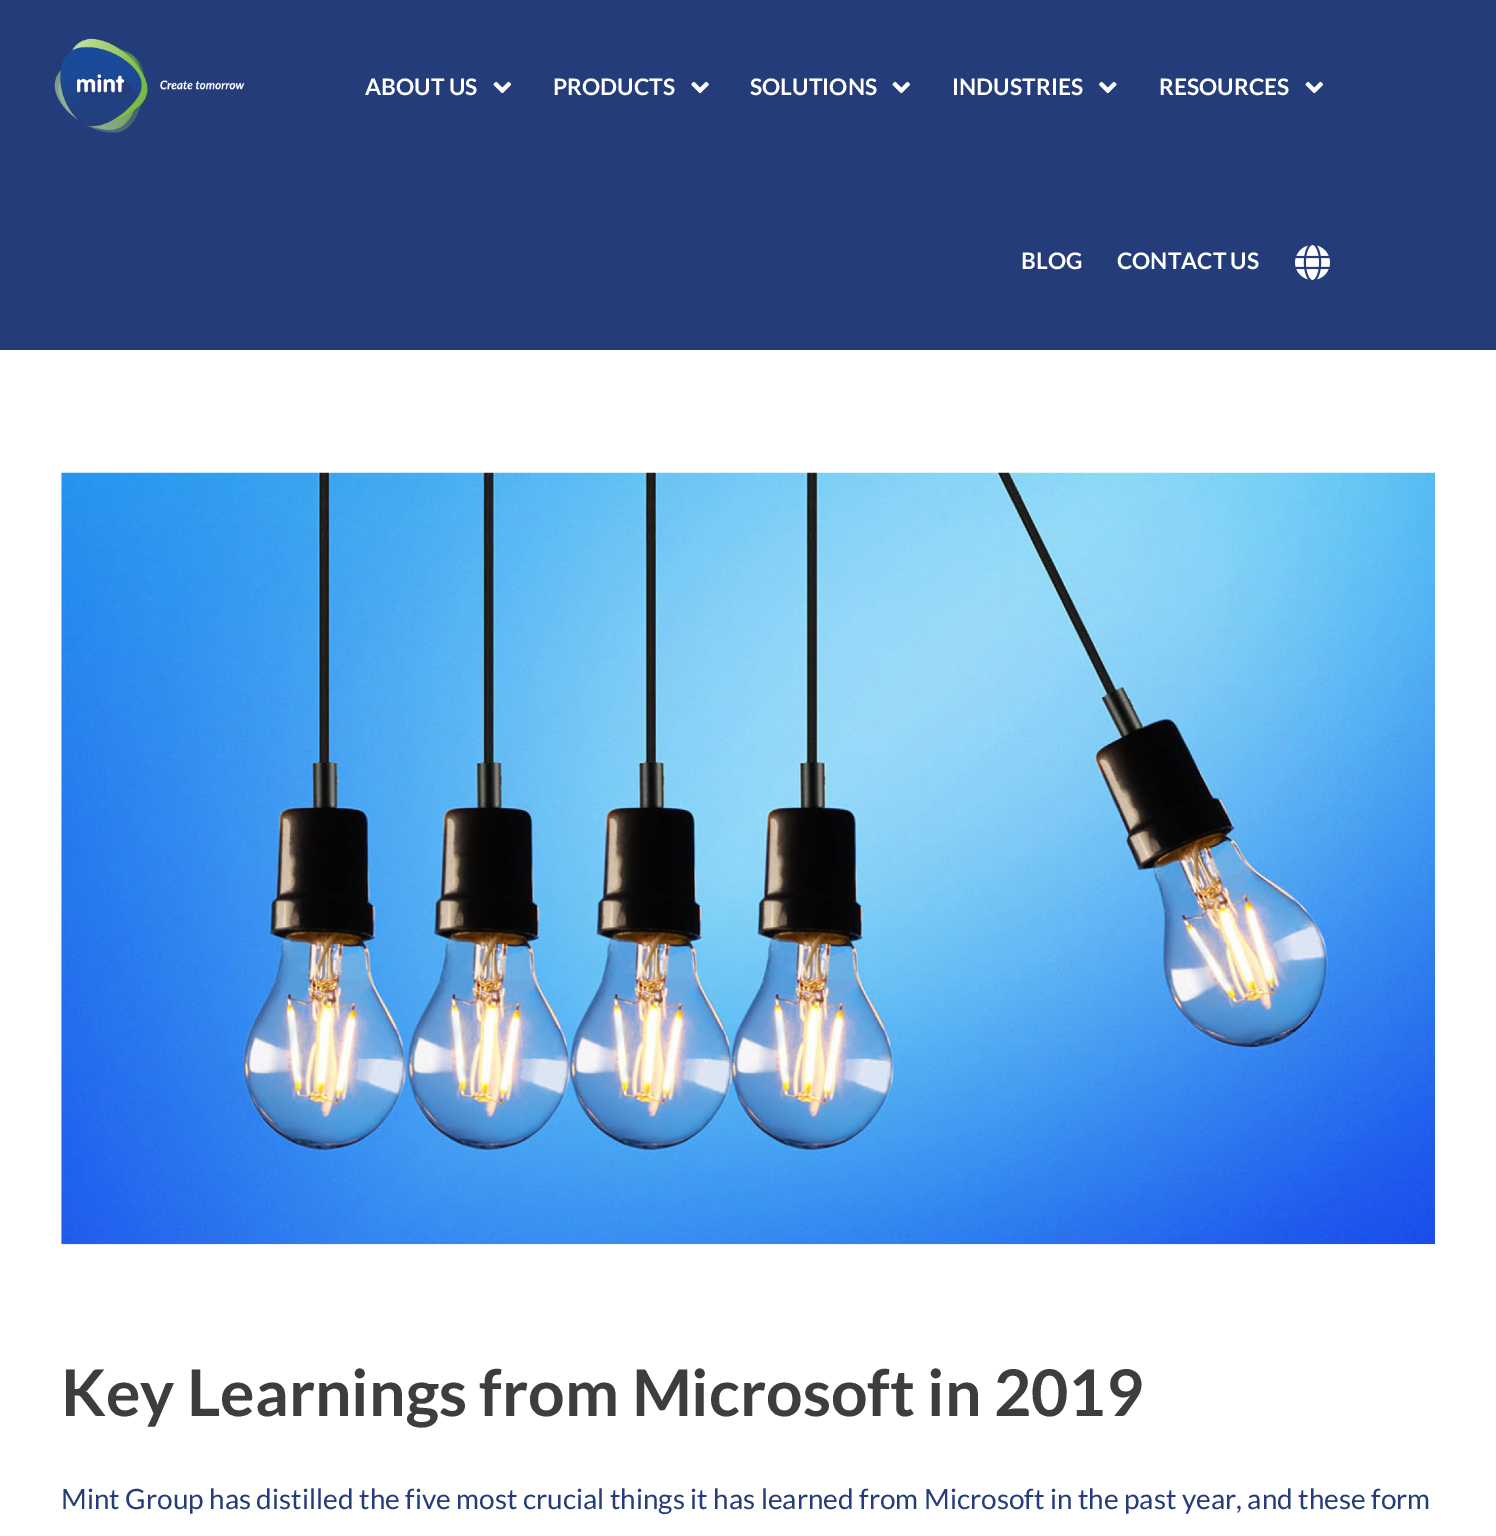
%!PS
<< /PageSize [1496 1536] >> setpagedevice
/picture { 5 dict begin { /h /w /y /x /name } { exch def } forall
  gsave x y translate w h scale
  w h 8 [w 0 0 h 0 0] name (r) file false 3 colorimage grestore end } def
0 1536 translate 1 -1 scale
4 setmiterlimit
1 setgray
0 0 1496 1536 rectfill
0.141 0.235 0.478 setrgbcolor
0 0 1496 350 rectfill
(img1.rgb) 54 38 191 95 picture
/Lato-Bold [22.75 0 0 -22.75 0 0] selectfont
1 setgray
365 95 moveto (ABOUT US) show
(img2.rgb) 493 81 18 13 picture
553 95 moveto (PRODUCTS) show
(img3.rgb) 691 81 18 13 picture
750 95 moveto (SOLUTIONS) show
(img2.rgb) 892 81 18 13 picture
952 95 moveto (INDUSTRIES) show
(img4.rgb) 1099 81 18 13 picture
1159 95 moveto (RESOURCES) show
(img2.rgb) 1305 81 18 13 picture
1021 269 moveto (BLOG) show
1117 269 moveto (CONTACT US) show
(img5.rgb) 1295 245 35 35 picture
(img6.rgb) 61 472 1374 773 picture
/Lato-Bold [64.4 0 0 -64.4 0 0] selectfont
0.239 setgray
61 1416 moveto (Key Learnings from Microsoft in 2019) show
/Lato-Regular [28 0 0 -28 0 0] selectfont
0.141 0.235 0.478 setrgbcolor
61 1509 moveto (Mint Group has distilled the five most crucial things it has learned from Microsoft in the past year, and these form) show
showpage
